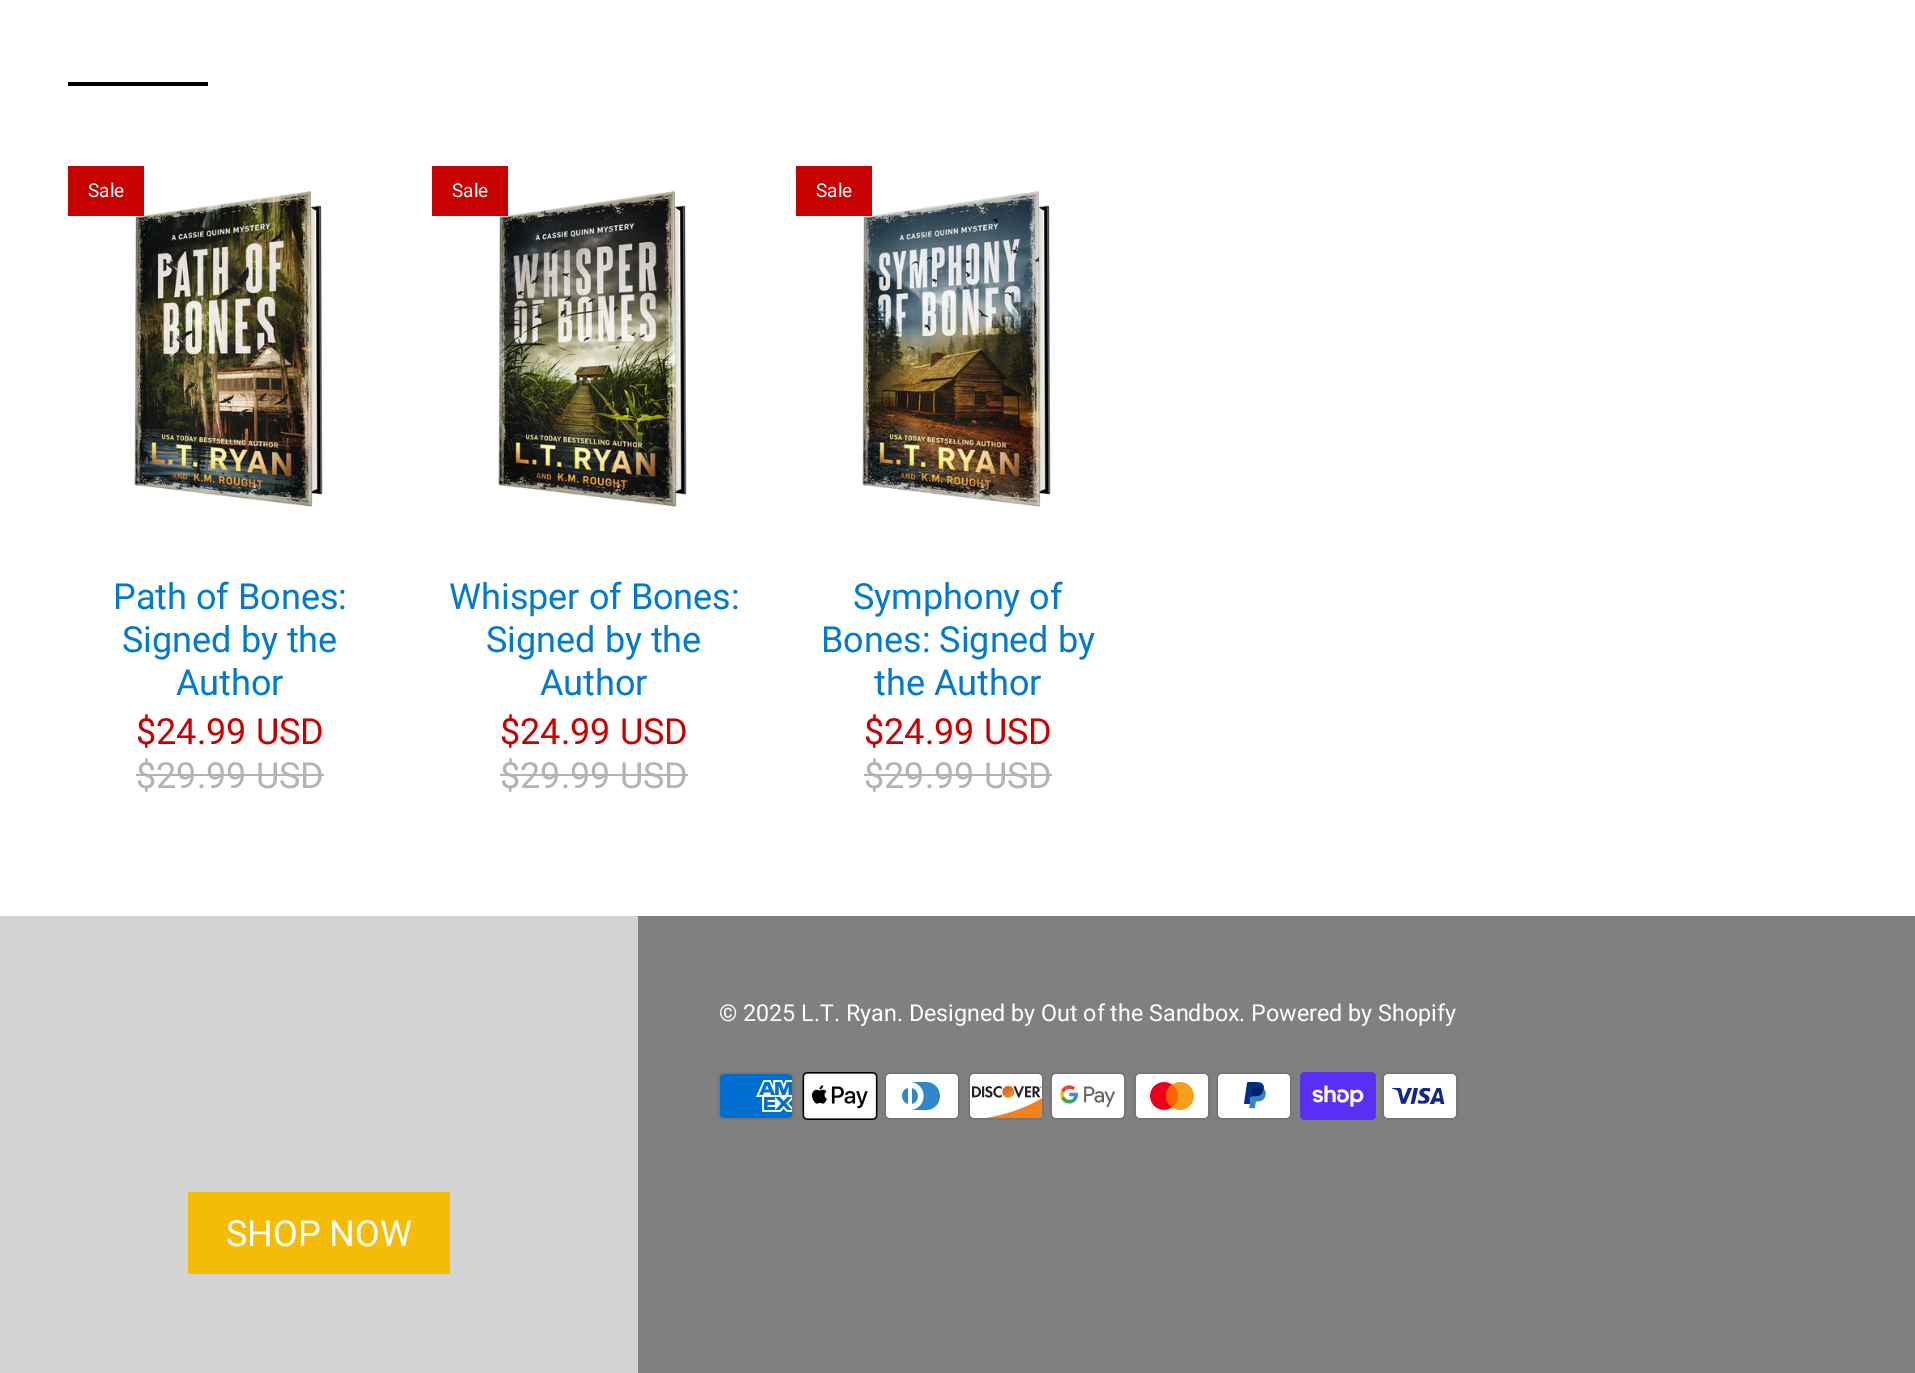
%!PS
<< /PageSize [1915 1373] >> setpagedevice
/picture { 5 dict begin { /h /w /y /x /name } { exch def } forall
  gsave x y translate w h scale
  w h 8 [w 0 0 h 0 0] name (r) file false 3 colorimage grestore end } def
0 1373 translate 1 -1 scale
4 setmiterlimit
1 setgray
0 0 1915 1373 rectfill
0 setgray
68 82 140 4 rectfill
(img1.rgb) 134 191 189 316 picture
0.78 0 0 setrgbcolor
68 166 76 50 rectfill
/Roboto-Regular [19 0 0 -19 0 0] selectfont
1 setgray
88 197 moveto (Sale) show
/Roboto-Regular [36 0 0 -36 0 0] selectfont
0 0.478 0.808 setrgbcolor
113 609 moveto (Path of Bones:) show
122 652 moveto (Signed by the) show
176 695 moveto (Author) show
0.78 0 0 setrgbcolor
136 744 moveto ($24.99 USD) show
0.702 setgray
136 788 moveto ($29.99 USD) show
136 774 188 2 rectfill
(img2.rgb) 497 191 191 316 picture
0.78 0 0 setrgbcolor
432 166 76 50 rectfill
/Roboto-Regular [19 0 0 -19 0 0] selectfont
1 setgray
452 197 moveto (Sale) show
/Roboto-Regular [36 0 0 -36 0 0] selectfont
0 0.478 0.808 setrgbcolor
449 609 moveto (Whisper of Bones:) show
486 652 moveto (Signed by the) show
540 695 moveto (Author) show
0.78 0 0 setrgbcolor
500 744 moveto ($24.99 USD) show
0.702 setgray
500 788 moveto ($29.99 USD) show
500 774 188 2 rectfill
(img3.rgb) 862 191 189 316 picture
0.78 0 0 setrgbcolor
796 166 76 50 rectfill
/Roboto-Regular [19 0 0 -19 0 0] selectfont
1 setgray
816 197 moveto (Sale) show
/Roboto-Regular [36 0 0 -36 0 0] selectfont
0 0.478 0.808 setrgbcolor
853 609 moveto (Symphony of) show
821 652 moveto (Bones: Signed by) show
874 695 moveto (the Author) show
0.78 0 0 setrgbcolor
864 744 moveto ($24.99 USD) show
0.702 setgray
864 788 moveto ($29.99 USD) show
864 774 188 2 rectfill
0.502 setgray
638 916 1277 457 rectfill
/Roboto-Regular [23.3 0 0 -23.3 0 0] selectfont
1 setgray
719 1021 moveto (© 2025 L.T. Ryan. Designed by Out of the Sandbox. Powered by Shopify) show
(img4.rgb) 718 1072 76 48 picture
(img5.rgb) 802 1072 76 48 picture
(img6.rgb) 884 1072 76 48 picture
(img7.rgb) 968 1072 76 48 picture
(img8.rgb) 1050 1072 76 48 picture
(img9.rgb) 1134 1072 76 48 picture
(img10.rgb) 1216 1072 76 48 picture
(img11.rgb) 1300 1072 76 48 picture
(img12.rgb) 1382 1072 76 48 picture
0.827 setgray
0 916 638 457 rectfill
0.961 0.737 0.024 setrgbcolor
188 1192 262 82 rectfill
/Roboto-Regular [36 0 0 -36 0 0] selectfont
1 setgray
226 1246 moveto (SHOP NOW) show
showpage
